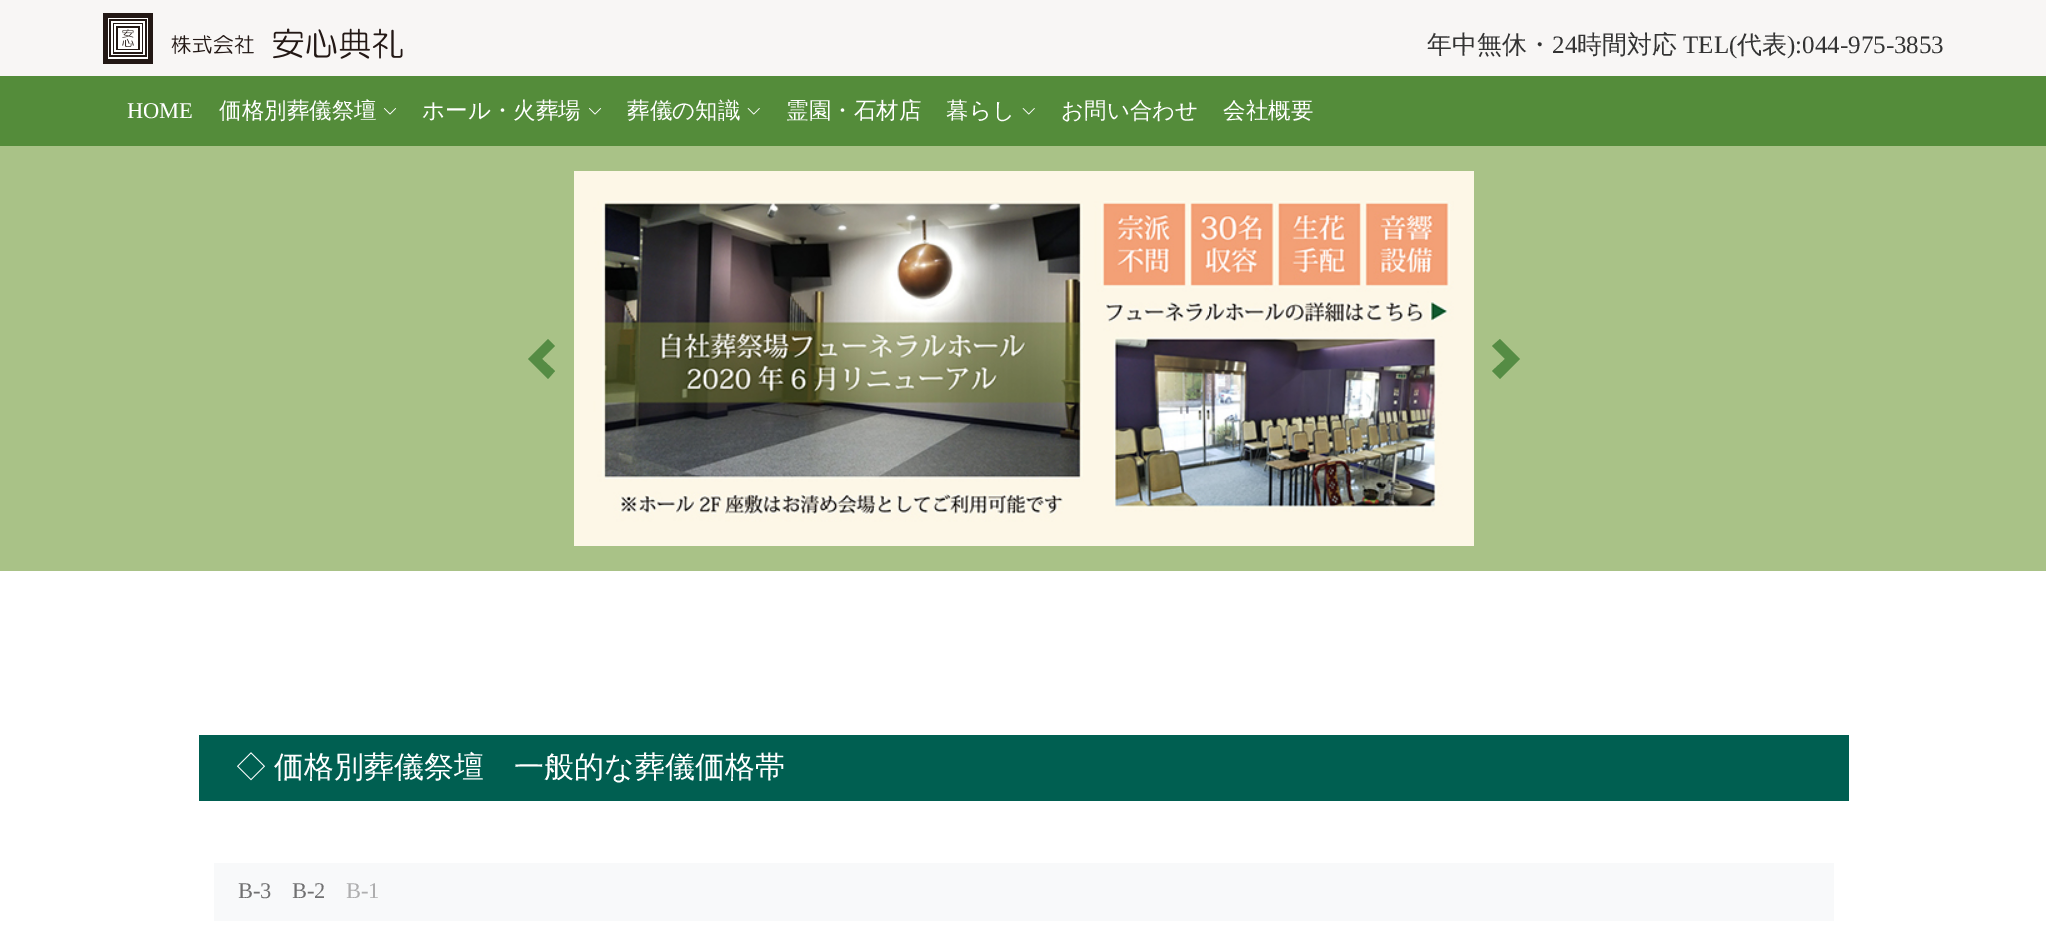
%!PS
<< /PageSize [2046 935] >> setpagedevice
/picture { 5 dict begin { /h /w /y /x /name } { exch def } forall
  gsave x y translate w h scale
  w h 8 [w 0 0 h 0 0] name (r) file false 3 colorimage grestore end } def
0 935 translate 1 -1 scale
4 setmiterlimit
1 setgray
0 0 2046 935 rectfill
0.973 0.965 0.961 setrgbcolor
0 0 2046 76 rectfill
(img1.rgb) 103 13 300 51 picture
/WenQuanYiZenHei-Medium [25 0 0 -25 0 0] selectfont
0.2 setgray
1427 53 moveto (年中無休・) show
/LiberationSerif-Regular [25 0 0 -25 0 0] selectfont
1552 53 moveto (24) show
/WenQuanYiZenHei-Medium [25 0 0 -25 0 0] selectfont
1577 53 moveto (時間対応) show
/LiberationSerif-Regular [25 0 0 -25 0 0] selectfont
1683 53 moveto (TEL\() show
/WenQuanYiZenHei-Medium [25 0 0 -25 0 0] selectfont
1737 53 moveto (代表) show
/LiberationSerif-Regular [25 0 0 -25 0 0] selectfont
1787 53 moveto (\):044-975-3853) show
0.329 0.549 0.227 setrgbcolor
0 76 2046 70 rectfill
/LiberationSerif-Regular [22.5 0 0 -22.5 0 0] selectfont
1 setgray
127 118 moveto (HOME) show
/WenQuanYiZenHei-Medium [22.5 0 0 -22.5 0 0] selectfont
219 118 moveto (価格別葬儀祭壇) show
(img2.rgb) 383 108 14 7 picture
422 118 moveto (ホール・火葬場) show
(img2.rgb) 588 108 14 7 picture
627 118 moveto (葬儀の知識) show
(img3.rgb) 747 108 13 7 picture
786 118 moveto (霊園・石材店) show
946 118 moveto (暮らし) show
(img3.rgb) 1022 108 13 7 picture
1061 118 moveto (お問い合わせ) show
1223 118 moveto (会社概要) show
0.663 0.761 0.529 setrgbcolor
0 146 2046 425 rectfill
0.333 0.549 0.267 setrgbcolor
newpath 548 339 moveto 528 359 lineto 548 379 lineto 555 371 lineto 542 359 lineto 555 346 lineto closepath fill
(img4.rgb) 574 171 900 375 picture
newpath 1500 339 moveto 1492 346 lineto 1505 359 lineto 1492 371 lineto 1500 379 lineto 1520 359 lineto closepath fill
0 0.373 0.318 setrgbcolor
199 735 1650 66 rectfill
/WenQuanYiZenHei-Medium [30 0 0 -30 0 0] selectfont
1 setgray
236 777 moveto -1 0 32 (◇ 価格別葬儀祭壇　一般的な葬儀価格帯) widthshow
0.973 0.976 0.98 setrgbcolor
214 863 1620 58 rectfill
/LiberationSerif-Regular [22.5 0 0 -22.5 0 0] selectfont
0.439 0.439 0.443 setrgbcolor
238 898 moveto (B-3) show
292 898 moveto (B-2) show
0.682 0.682 0.686 setrgbcolor
346 898 moveto (B-1) show
showpage
